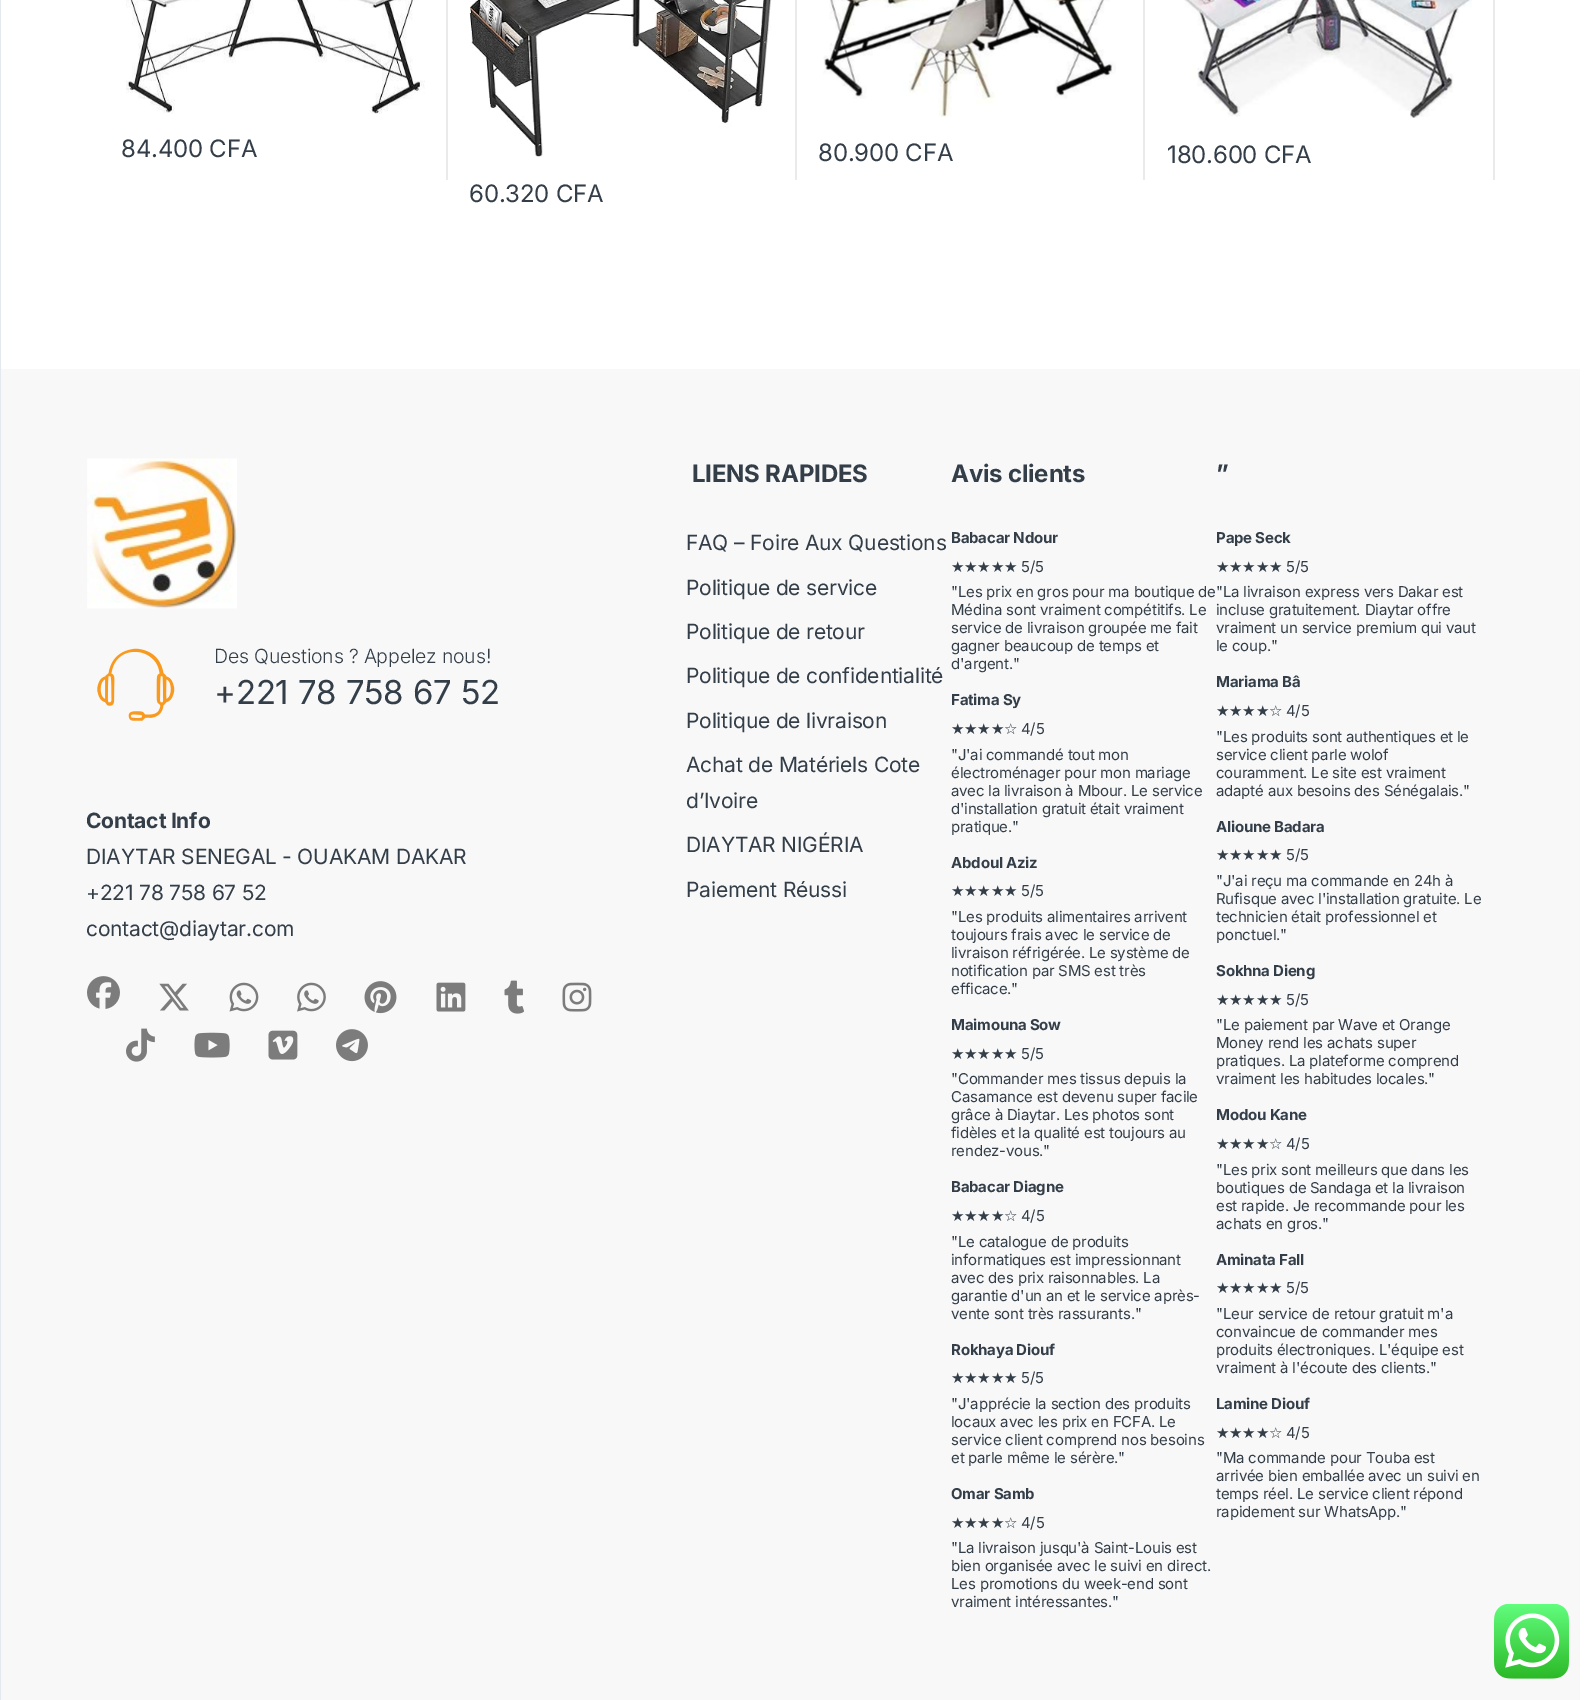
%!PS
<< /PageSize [1591 1700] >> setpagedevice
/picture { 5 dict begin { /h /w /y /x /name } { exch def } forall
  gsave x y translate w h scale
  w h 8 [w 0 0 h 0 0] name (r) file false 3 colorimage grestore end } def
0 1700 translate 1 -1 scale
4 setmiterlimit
1 setgray
0 0 1591 1700 rectfill
0.89 0.914 0.937 setrgbcolor
0 0 1 1700 rectfill
(img1.rgb) 126 0 299 114 picture
/Inter-Regular [24 0 0 -24 0 0] selectfont
0.2 0.243 0.282 setrgbcolor
121 157 moveto -0.2 0 (84.400 CFA) ashow
0.918 setgray
446 0 2 180 rectfill
(img2.rgb) 823 0 293 117 picture
0.2 0.243 0.282 setrgbcolor
818 161 moveto -0.2 0 (80.900 CFA) ashow
0.918 setgray
1143 0 2 180 rectfill
(img3.rgb) 1184 0 288 118 picture
0.2 0.243 0.282 setrgbcolor
1167 163 moveto -0.2 0 (180.600 CFA) ashow
0.918 setgray
1493 0 2 180 rectfill
795 0 2 180 rectfill
(img4.rgb) 469 0 303 157 picture
0.2 0.243 0.282 setrgbcolor
469 202 moveto -0.2 0 (60.320 CFA) ashow
0.973 setgray
1 369 1579 1331 rectfill
(img5.rgb) 87 458 150 151 picture
(img6.rgb) 97 648 78 73 picture
/Inter-Light [19.5 0 0 -19.5 0 0] selectfont
0.2 0.243 0.282 setrgbcolor
214 663 moveto -0.2 0 (Des Questions ? Appelez nous!) ashow
/Inter-Regular [33 0 0 -33 0 0] selectfont
214 704 moveto -0.2 0 (+221 78 758 67 52) ashow
/Inter-Bold [21 0 0 -21 0 0] selectfont
86 828 moveto -0.2 0 (Contact Info) ashow
/Inter-Regular [21 0 0 -21 0 0] selectfont
86 864 moveto -0.2 0 (DIAYTAR SENEGAL - OUAKAM DAKAR) ashow
86 900 moveto -0.2 0 (+221 78 758 67 52) ashow
86 936 moveto -0.2 0 (contact@diaytar.com) ashow
(img7.rgb) 87 976 33 33 picture
(img8.rgb) 159 983 30 28 picture
(img9.rgb) 229 982 30 30 picture
(img10.rgb) 297 982 29 30 picture
(img11.rgb) 364 981 33 33 picture
(img12.rgb) 436 982 30 30 picture
(img13.rgb) 504 980 20 34 picture
(img14.rgb) 562 982 30 30 picture
(img15.rgb) 126 1028 29 34 picture
(img16.rgb) 194 1032 36 26 picture
(img17.rgb) 268 1030 30 30 picture
(img18.rgb) 336 1029 32 33 picture
/Inter-Bold [24 0 0 -24 0 0] selectfont
692 482 moveto -0.2 0 (LIENS RAPIDES) ashow
/Inter-Regular [21 0 0 -21 0 0] selectfont
686 550 moveto -0.2 0 (FAQ – Foire Aux Questions) ashow
686 595 moveto -0.2 0 (Politique de service) ashow
686 639 moveto -0.2 0 (Politique de retour) ashow
686 683 moveto -0.2 0 (Politique de confidentialité) ashow
686 728 moveto -0.2 0 (Politique de livraison) ashow
686 772 moveto -0.2 0 (Achat de Matériels Cote) ashow
686 808 moveto -0.2 0 (d’Ivoire) ashow
686 852 moveto -0.2 0 (DIAYTAR NIGÉRIA) ashow
686 897 moveto -0.2 0 (Paiement Réussi) ashow
/Inter-Bold [24 0 0 -24 0 0] selectfont
951 482 moveto -0.2 0 (Avis clients) ashow
/Inter-Bold [15 0 0 -15 0 0] selectfont
951 543 moveto -0.2 0 (Babacar Ndour) ashow
/DejaVuSans-Regular [15 0 0 -15 0 0] selectfont
951 572 moveto -0.2 0 (★★★★★) ashow
/Inter-Regular [15 0 0 -15 0 0] selectfont
1021 572 moveto -0.2 0 (5/5) ashow
951 597 moveto -0.2 0 ("Les prix en gros pour ma boutique de) ashow
951 615 moveto -0.2 0 (Médina sont vraiment compétitifs. Le) ashow
951 633 moveto -0.2 0 (service de livraison groupée me fait) ashow
951 651 moveto -0.2 0 (gagner beaucoup de temps et) ashow
951 669 moveto -0.2 0 (d'argent.") ashow
/Inter-Bold [15 0 0 -15 0 0] selectfont
951 705 moveto -0.2 0 (Fatima Sy) ashow
/DejaVuSans-Regular [15 0 0 -15 0 0] selectfont
951 734 moveto -0.2 0 (★★★★☆) ashow
/Inter-Regular [15 0 0 -15 0 0] selectfont
1021 734 moveto -0.2 0 (4/5) ashow
951 760 moveto -0.2 0 ("J'ai commandé tout mon) ashow
951 778 moveto -0.2 0 (électroménager pour mon mariage) ashow
951 796 moveto -0.2 0 (avec la livraison à Mbour. Le service) ashow
951 814 moveto -0.2 0 (d'installation gratuit était vraiment) ashow
951 832 moveto -0.2 0 (pratique.") ashow
/Inter-Bold [15 0 0 -15 0 0] selectfont
951 868 moveto -0.2 0 (Abdoul Aziz) ashow
/DejaVuSans-Regular [15 0 0 -15 0 0] selectfont
951 896 moveto -0.2 0 (★★★★★) ashow
/Inter-Regular [15 0 0 -15 0 0] selectfont
1021 896 moveto -0.2 0 (5/5) ashow
951 922 moveto -0.2 0 ("Les produits alimentaires arrivent) ashow
951 940 moveto -0.2 0 (toujours frais avec le service de) ashow
951 958 moveto -0.2 0 (livraison réfrigérée. Le système de) ashow
951 976 moveto -0.2 0 (notification par SMS est très) ashow
951 994 moveto -0.2 0 (efficace.") ashow
/Inter-Bold [15 0 0 -15 0 0] selectfont
951 1030 moveto -0.2 0 (Maimouna Sow) ashow
/DejaVuSans-Regular [15 0 0 -15 0 0] selectfont
951 1059 moveto -0.2 0 (★★★★★) ashow
/Inter-Regular [15 0 0 -15 0 0] selectfont
1021 1059 moveto -0.2 0 (5/5) ashow
951 1084 moveto -0.2 0 ("Commander mes tissus depuis la) ashow
951 1102 moveto -0.2 0 (Casamance est devenu super facile) ashow
951 1120 moveto -0.2 0 (grâce à Diaytar. Les photos sont) ashow
951 1138 moveto -0.2 0 (fidèles et la qualité est toujours au) ashow
951 1156 moveto -0.2 0 (rendez-vous.") ashow
/Inter-Bold [15 0 0 -15 0 0] selectfont
951 1192 moveto -0.2 0 (Babacar Diagne) ashow
/DejaVuSans-Regular [15 0 0 -15 0 0] selectfont
951 1221 moveto -0.2 0 (★★★★☆) ashow
/Inter-Regular [15 0 0 -15 0 0] selectfont
1021 1221 moveto -0.2 0 (4/5) ashow
951 1247 moveto -0.2 0 ("Le catalogue de produits) ashow
951 1265 moveto -0.2 0 (informatiques est impressionnant) ashow
951 1283 moveto -0.2 0 (avec des prix raisonnables. La) ashow
951 1301 moveto -0.2 0 (garantie d'un an et le service après-) ashow
951 1319 moveto -0.2 0 (vente sont très rassurants.") ashow
/Inter-Bold [15 0 0 -15 0 0] selectfont
951 1355 moveto -0.2 0 (Rokhaya Diouf) ashow
/DejaVuSans-Regular [15 0 0 -15 0 0] selectfont
951 1383 moveto -0.2 0 (★★★★★) ashow
/Inter-Regular [15 0 0 -15 0 0] selectfont
1021 1383 moveto -0.2 0 (5/5) ashow
951 1409 moveto -0.2 0 ("J'apprécie la section des produits) ashow
951 1427 moveto -0.2 0 (locaux avec les prix en FCFA. Le) ashow
951 1445 moveto -0.2 0 (service client comprend nos besoins) ashow
951 1463 moveto -0.2 0 (et parle même le sérère.") ashow
/Inter-Bold [15 0 0 -15 0 0] selectfont
951 1499 moveto -0.2 0 (Omar Samb) ashow
/DejaVuSans-Regular [15 0 0 -15 0 0] selectfont
951 1528 moveto -0.2 0 (★★★★☆) ashow
/Inter-Regular [15 0 0 -15 0 0] selectfont
1021 1528 moveto -0.2 0 (4/5) ashow
951 1553 moveto -0.2 0 ("La livraison jusqu'à Saint-Louis est) ashow
951 1571 moveto -0.2 0 (bien organisée avec le suivi en direct.) ashow
951 1589 moveto -0.2 0 (Les promotions du week-end sont) ashow
951 1607 moveto -0.2 0 (vraiment intéressantes.") ashow
/Inter-Bold [24 0 0 -24 0 0] selectfont
1216 482 moveto -0.2 0 (”) ashow
/Inter-Bold [15 0 0 -15 0 0] selectfont
1216 543 moveto -0.2 0 (Pape Seck) ashow
/DejaVuSans-Regular [15 0 0 -15 0 0] selectfont
1216 572 moveto -0.2 0 (★★★★★) ashow
/Inter-Regular [15 0 0 -15 0 0] selectfont
1286 572 moveto -0.2 0 (5/5) ashow
1216 597 moveto -0.2 0 ("La livraison express vers Dakar est) ashow
1216 615 moveto -0.2 0 (incluse gratuitement. Diaytar offre) ashow
1216 633 moveto -0.2 0 (vraiment un service premium qui vaut) ashow
1216 651 moveto -0.2 0 (le coup.") ashow
/Inter-Bold [15 0 0 -15 0 0] selectfont
1216 687 moveto -0.2 0 (Mariama Bâ) ashow
/DejaVuSans-Regular [15 0 0 -15 0 0] selectfont
1216 716 moveto -0.2 0 (★★★★☆) ashow
/Inter-Regular [15 0 0 -15 0 0] selectfont
1286 716 moveto -0.2 0 (4/5) ashow
1216 742 moveto -0.2 0 ("Les produits sont authentiques et le) ashow
1216 760 moveto -0.2 0 (service client parle wolof) ashow
1216 778 moveto -0.2 0 (couramment. Le site est vraiment) ashow
1216 796 moveto -0.2 0 (adapté aux besoins des Sénégalais.") ashow
/Inter-Bold [15 0 0 -15 0 0] selectfont
1216 832 moveto -0.2 0 (Alioune Badara) ashow
/DejaVuSans-Regular [15 0 0 -15 0 0] selectfont
1216 860 moveto -0.2 0 (★★★★★) ashow
/Inter-Regular [15 0 0 -15 0 0] selectfont
1286 860 moveto -0.2 0 (5/5) ashow
1216 886 moveto -0.2 0 ("J'ai reçu ma commande en 24h à) ashow
1216 904 moveto -0.2 0 (Rufisque avec l'installation gratuite. Le) ashow
1216 922 moveto -0.2 0 (technicien était professionnel et) ashow
1216 940 moveto -0.2 0 (ponctuel.") ashow
/Inter-Bold [15 0 0 -15 0 0] selectfont
1216 976 moveto -0.2 0 (Sokhna Dieng) ashow
/DejaVuSans-Regular [15 0 0 -15 0 0] selectfont
1216 1005 moveto -0.2 0 (★★★★★) ashow
/Inter-Regular [15 0 0 -15 0 0] selectfont
1286 1005 moveto -0.2 0 (5/5) ashow
1216 1030 moveto -0.2 0 ("Le paiement par Wave et Orange) ashow
1216 1048 moveto -0.2 0 (Money rend les achats super) ashow
1216 1066 moveto -0.2 0 (pratiques. La plateforme comprend) ashow
1216 1084 moveto -0.2 0 (vraiment les habitudes locales.") ashow
/Inter-Bold [15 0 0 -15 0 0] selectfont
1216 1120 moveto -0.2 0 (Modou Kane) ashow
/DejaVuSans-Regular [15 0 0 -15 0 0] selectfont
1216 1149 moveto -0.2 0 (★★★★☆) ashow
/Inter-Regular [15 0 0 -15 0 0] selectfont
1286 1149 moveto -0.2 0 (4/5) ashow
1216 1175 moveto -0.2 0 ("Les prix sont meilleurs que dans les) ashow
1216 1193 moveto -0.2 0 (boutiques de Sandaga et la livraison) ashow
1216 1211 moveto -0.2 0 (est rapide. Je recommande pour les) ashow
1216 1229 moveto -0.2 0 (achats en gros.") ashow
/Inter-Bold [15 0 0 -15 0 0] selectfont
1216 1265 moveto -0.2 0 (Aminata Fall) ashow
/DejaVuSans-Regular [15 0 0 -15 0 0] selectfont
1216 1293 moveto -0.2 0 (★★★★★) ashow
/Inter-Regular [15 0 0 -15 0 0] selectfont
1286 1293 moveto -0.2 0 (5/5) ashow
1216 1319 moveto -0.2 0 ("Leur service de retour gratuit m'a) ashow
1216 1337 moveto -0.2 0 (convaincue de commander mes) ashow
1216 1355 moveto -0.2 0 (produits électroniques. L'équipe est) ashow
1216 1373 moveto -0.2 0 (vraiment à l'écoute des clients.") ashow
/Inter-Bold [15 0 0 -15 0 0] selectfont
1216 1409 moveto -0.2 0 (Lamine Diouf) ashow
/DejaVuSans-Regular [15 0 0 -15 0 0] selectfont
1216 1438 moveto -0.2 0 (★★★★☆) ashow
/Inter-Regular [15 0 0 -15 0 0] selectfont
1286 1438 moveto -0.2 0 (4/5) ashow
1216 1463 moveto -0.2 0 ("Ma commande pour Touba est) ashow
1216 1481 moveto -0.2 0 (arrivée bien emballée avec un suivi en) ashow
1216 1499 moveto -0.2 0 (temps réel. Le service client répond) ashow
1216 1517 moveto -0.2 0 (rapidement sur WhatsApp.") ashow
(img19.rgb) 1494 1604 75 75 picture
showpage
